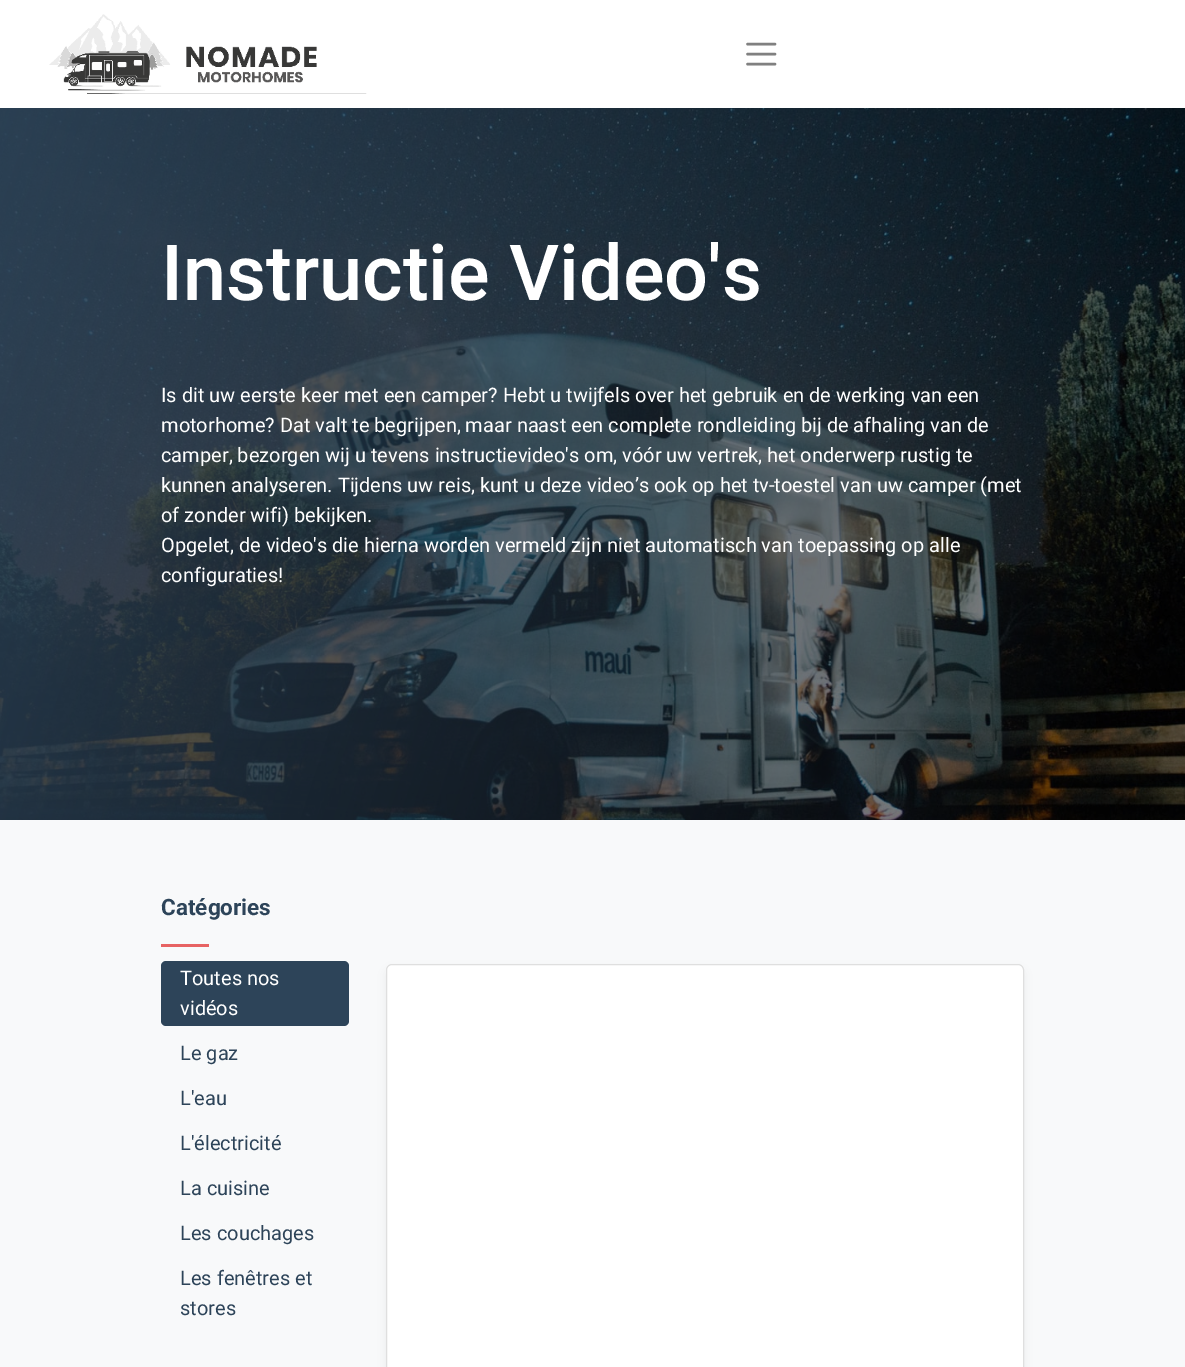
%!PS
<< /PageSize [1185 1367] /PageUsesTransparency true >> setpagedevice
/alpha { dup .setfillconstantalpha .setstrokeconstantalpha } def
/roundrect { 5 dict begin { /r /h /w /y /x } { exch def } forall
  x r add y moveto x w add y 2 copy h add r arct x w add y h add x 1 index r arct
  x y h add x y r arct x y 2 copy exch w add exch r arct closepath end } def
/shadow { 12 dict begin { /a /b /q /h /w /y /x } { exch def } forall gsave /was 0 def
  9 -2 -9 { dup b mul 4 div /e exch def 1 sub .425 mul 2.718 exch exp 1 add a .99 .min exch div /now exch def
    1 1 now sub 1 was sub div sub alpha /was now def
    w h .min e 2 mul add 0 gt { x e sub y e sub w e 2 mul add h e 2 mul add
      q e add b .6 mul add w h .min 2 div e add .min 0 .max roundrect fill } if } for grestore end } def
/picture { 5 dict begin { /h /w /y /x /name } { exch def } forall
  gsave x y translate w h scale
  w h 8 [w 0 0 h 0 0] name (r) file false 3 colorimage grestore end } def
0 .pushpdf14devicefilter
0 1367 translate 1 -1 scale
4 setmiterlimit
1 setgray
0 0 1185 1367 rectfill
(img1.rgb) 49 14 318 80 picture
0.502 setgray
2.5 setlinewidth
1 setlinecap
newpath 747.5 44 moveto 775 44 lineto 747.5 54 moveto 775 54 lineto 747.5 64 moveto 775 64 lineto stroke
(img2.rgb) 0 108 1185 712 picture
/Roboto-Medium [77.5 0 0 -77.5 0 0] selectfont
1 setgray
161 300 moveto (Instructie Video's) show
/Roboto-Regular [20 0 0 -20 0 0] selectfont
161 402 moveto (Is dit uw eerste keer met een camper? Hebt u twijfels over het gebruik en de werking van een) show
161 432 moveto (motorhome? Dat valt te begrijpen, maar naast een complete rondleiding bij de afhaling van de) show
161 462 moveto (camper, bezorgen wij u tevens instructievideo's om, vóór uw vertrek, het onderwerp rustig te) show
161 492 moveto (kunnen analyseren. Tijdens uw reis, kunt u deze video’s ook op het tv-toestel van uw camper \(met) show
161 522 moveto (of zonder wifi\) bekijken.) show
161 552 moveto (Opgelet, de video's die hierna worden vermeld zijn niet automatisch van toepassing op alle) show
161 582 moveto (configuraties!) show
0.973 0.976 0.98 setrgbcolor
0 820 1185 547 rectfill
/Roboto-Bold [22.5 0 0 -22.5 0 0] selectfont
0.176 0.267 0.349 setrgbcolor
161 915 moveto (Catégories) show
0.906 0.388 0.388 setrgbcolor
161 944 48 3 rectfill
0.176 0.267 0.349 setrgbcolor
161 961 188 65 5 roundrect fill
/Roboto-Regular [20 0 0 -20 0 0] selectfont
1 setgray
180 985 moveto (Toutes nos) show
180 1015 moveto (vidéos) show
0.176 0.267 0.349 setrgbcolor
180 1060 moveto (Le gaz) show
180 1105 moveto (L'eau) show
180 1150 moveto (L'électricité) show
180 1195 moveto (La cuisine) show
180 1240 moveto (Les couchages) show
180 1285 moveto (Les fenêtres et) show
180 1315 moveto (stores) show
0 setgray
386 969 638 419 6 5 0.05 shadow
1 setgray
newpath 392 964 moveto 1018 964 lineto 1021.5 964 1024 966.5 1024 970 curveto 1024 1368 lineto 386 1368 lineto 386 970 lineto 386 966.5 388.5 964 392 964 curveto closepath fill
0.875 setgray
1 setlinewidth
0 setlinecap
386.5 964.5 637 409 5.5 roundrect stroke
.poppdf14devicefilter showpage
